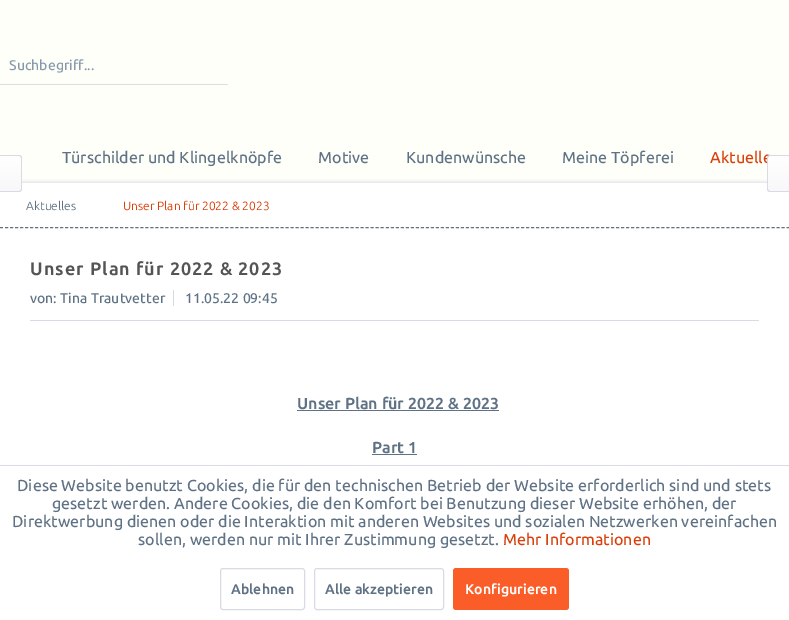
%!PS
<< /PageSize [789 620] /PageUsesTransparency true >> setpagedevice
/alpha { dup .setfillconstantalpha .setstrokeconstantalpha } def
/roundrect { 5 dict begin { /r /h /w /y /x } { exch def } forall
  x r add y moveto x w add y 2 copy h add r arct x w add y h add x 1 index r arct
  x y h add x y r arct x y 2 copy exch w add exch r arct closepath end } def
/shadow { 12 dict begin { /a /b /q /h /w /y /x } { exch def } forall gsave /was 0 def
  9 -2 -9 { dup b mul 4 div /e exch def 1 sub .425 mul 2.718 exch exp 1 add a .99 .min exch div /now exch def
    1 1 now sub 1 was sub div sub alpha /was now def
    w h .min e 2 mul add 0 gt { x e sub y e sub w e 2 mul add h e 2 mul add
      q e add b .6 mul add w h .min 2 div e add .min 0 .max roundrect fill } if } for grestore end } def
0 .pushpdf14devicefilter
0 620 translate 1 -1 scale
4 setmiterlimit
1 1 0.98 setrgbcolor
0 0 789 620 rectfill
0.867 setgray
0 84 228 1 rectfill
/Ubuntu-Medium [14 0 0 -14 0 0] selectfont
0.529 0.596 0.663 setrgbcolor
9 70 moveto (Suchbegriff...) show
0.855 0.855 0.898 setrgbcolor
-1 182 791 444 0 2 1 shadow
1 setgray
0 183 789 282 rectfill
gsave newpath 0 156 moveto 19 156 lineto 20 156 21 157 21 158 curveto 21 189 lineto 21 190 20 191 19 191 curveto 0 191 lineto closepath clip newpath
<< /ShadingType 2 /ColorSpace /DeviceRGB /Coords [10 156 11 191] /Extend [true true] /Function << /FunctionType 2 /Domain [0 1] /C0 [1 1 1] /C1 [0.973 0.973 0.98] /N 1 >> >> shfill grestore
0.855 0.855 0.898 setrgbcolor
newpath 0 155 moveto 19 155 lineto 20.5 155 22 156.5 22 158 curveto 22 189 lineto 22 190.5 20.5 192 19 192 curveto 0 192 lineto closepath 0 156 moveto 19 156 lineto 20 156 21 157 21 158 curveto 21 189 lineto 21 190 20 191 19 191 curveto 0 191 lineto closepath eofill
/Ubuntu-Medium [16 0 0 -16 0 0] selectfont
0.373 0.447 0.522 setrgbcolor
62 163 moveto (Türschilder und Klingelknöpfe) show
318 163 moveto (Motive) show
406 163 moveto (Kundenwünsche) show
562 163 moveto (Meine Töpferei) show
0.851 0.251 0.043 setrgbcolor
710 163 moveto (Aktuelle) show
gsave newpath 770 156 moveto 789 156 lineto 789 191 lineto 770 191 lineto 769 191 768 190 768 189 curveto 768 158 lineto 768 157 769 156 770 156 curveto closepath clip newpath
<< /ShadingType 2 /ColorSpace /DeviceRGB /Coords [779 156 779 191] /Extend [true true] /Function << /FunctionType 2 /Domain [0 1] /C0 [1 1 1] /C1 [0.973 0.973 0.98] /N 1 >> >> shfill grestore
0.855 0.855 0.898 setrgbcolor
newpath 770 155 moveto 789 155 lineto 789 192 lineto 770 192 lineto 768.5 192 767 190.5 767 189 curveto 767 158 lineto 767 156.5 768.5 155 770 155 curveto closepath 770 156 moveto 789 156 lineto 789 191 lineto 770 191 lineto 769 191 768 190 768 189 curveto 768 158 lineto 768 157 769 156 770 156 curveto closepath eofill
0.373 0.447 0.522 setrgbcolor
[3 2.01] 0 setdash
newpath 0 227.5 moveto 789 227.5 lineto stroke
/Ubuntu-Regular [12 0 0 -12 0 0] selectfont
26 210 moveto (Aktuelles) show
0.851 0.251 0.043 setrgbcolor
123 210 moveto (Unser Plan für 2022 & 2023) show
/Ubuntu-Bold [18 0 0 -18 0 0] selectfont
0.333 0.325 0.333 setrgbcolor
30 275 moveto 1 0 (Unser Plan für 2022 & 2023) ashow
0.855 0.855 0.898 setrgbcolor
30 320 729 1 rectfill
173 290 1 16 rectfill
/Ubuntu-Medium [14 0 0 -14 0 0] selectfont
0.373 0.447 0.522 setrgbcolor
30 303 moveto (von: Tina Trautvetter) show
185 303 moveto (11.05.22 09:45) show
/Ubuntu-Bold [16 0 0 -16 0 0] selectfont
297 409 moveto (Unser Plan für 2022 & 2023) show
297 410 202 1 rectfill
372 453 moveto (Part 1) show
372 454 45 1 rectfill
1 setgray
0 466 789 154 rectfill
0.855 0.855 0.898 setrgbcolor
0 465 789 1 rectfill
/Ubuntu-Medium [16 0 0 -16 0 0] selectfont
0.373 0.447 0.522 setrgbcolor
17 491 moveto (Diese Website benutzt Cookies, die für den technischen Betrieb der Website erforderlich sind und stets) show
52 509 moveto (gesetzt werden. Andere Cookies, die den Komfort bei Benutzung dieser Website erhöhen, der) show
12 527 moveto (Direktwerbung dienen oder die Interaktion mit anderen Websites und sozialen Netzwerken vereinfachen) show
138 545 moveto (sollen, werden nur mit Ihrer Zustimmung gesetzt.) show
0.851 0.251 0.043 setrgbcolor
503 545 moveto (Mehr Informationen) show
0.855 0.855 0.898 setrgbcolor
[] 0 setdash
220.5 568.5 84 41 2.5 roundrect stroke
/Ubuntu-Bold [14 0 0 -14 0 0] selectfont
0.373 0.447 0.522 setrgbcolor
231 594 moveto (Ablehnen) show
0.855 0.855 0.898 setrgbcolor
314.5 568.5 129 41 2.5 roundrect stroke
0.373 0.447 0.522 setrgbcolor
325 594 moveto (Alle akzeptieren) show
0.98 0.365 0.153 setrgbcolor
453 568 116 42 3 roundrect fill
1 setgray
465 594 moveto (Konfigurieren) show
.poppdf14devicefilter showpage
